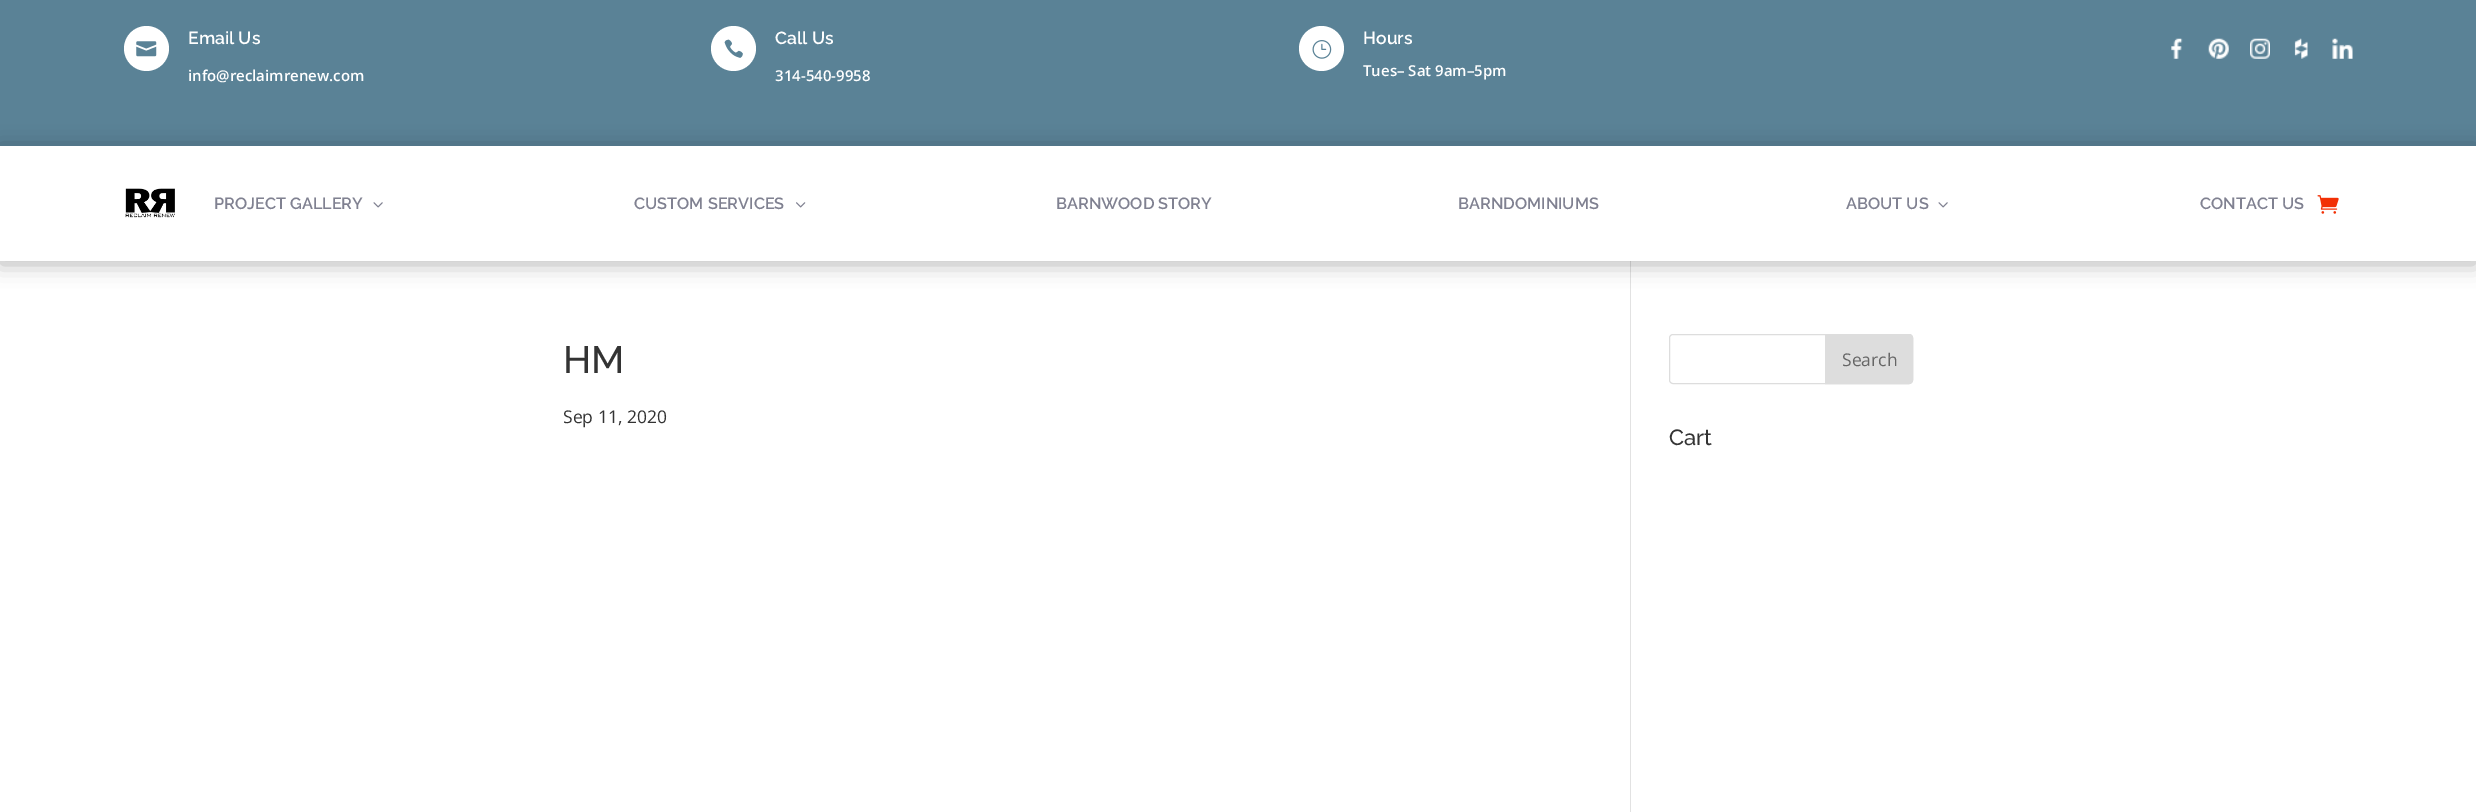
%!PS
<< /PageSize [2476 812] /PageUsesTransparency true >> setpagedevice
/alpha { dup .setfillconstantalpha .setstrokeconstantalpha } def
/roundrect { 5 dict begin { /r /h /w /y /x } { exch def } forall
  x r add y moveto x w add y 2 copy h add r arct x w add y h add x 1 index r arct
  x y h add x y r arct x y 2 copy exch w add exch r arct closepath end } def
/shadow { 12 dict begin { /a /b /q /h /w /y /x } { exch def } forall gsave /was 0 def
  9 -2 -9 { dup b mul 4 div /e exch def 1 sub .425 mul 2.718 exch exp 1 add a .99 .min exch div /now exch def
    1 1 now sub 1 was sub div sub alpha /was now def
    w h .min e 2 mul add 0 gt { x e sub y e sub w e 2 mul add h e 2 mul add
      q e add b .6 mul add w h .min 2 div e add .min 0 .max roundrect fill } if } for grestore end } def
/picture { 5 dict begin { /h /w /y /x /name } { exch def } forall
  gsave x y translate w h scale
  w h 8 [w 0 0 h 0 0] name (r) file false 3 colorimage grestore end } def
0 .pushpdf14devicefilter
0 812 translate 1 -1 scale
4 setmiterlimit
0.353 0.51 0.588 setrgbcolor
0 0 2476 812 rectfill
1 setgray
newpath 146.5 48.5 22.5 0 360 arc closepath fill
(img1.rgb) 136 41 21 16 picture
/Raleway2-Thin [17.5 0 0 -17.5 0 0] selectfont
188 44 moveto (Email Us) show
/OpenSans-SemiBold [15 0 0 -15 0 0] selectfont
188 81 moveto (info@reclaimrenew.com) show
newpath 733.5 48.5 22.5 0 360 arc closepath fill
(img2.rgb) 724 39 19 19 picture
/Raleway2-Thin [17.5 0 0 -17.5 0 0] selectfont
775 44 moveto (Call Us) show
/OpenSans-SemiBold [15 0 0 -15 0 0] selectfont
775 81 moveto (314-540-9958) show
newpath 1321.5 48.5 22.5 0 360 arc closepath fill
(img3.rgb) 1312 40 20 19 picture
/Raleway2-Thin [17.5 0 0 -17.5 0 0] selectfont
1363 44 moveto (Hours) show
/OpenSans-SemiBold [15 0 0 -15 0 0] selectfont
1363 76 moveto (Tues– Sat 9am–5pm) show
(img4.rgb) 2171 38 12 21 picture
(img5.rgb) 2208 38 21 21 picture
(img6.rgb) 2250 38 20 21 picture
(img7.rgb) 2294 38 14 21 picture
(img8.rgb) 2332 38 21 21 picture
0 261 2476 551 rectfill
0.886 setgray
1630 261 1 551 rectfill
0 setgray
0 149 2476 115 0 11 0.3 shadow
1 setgray
0 146 2476 115 rectfill
(img9.rgb) 125 188 50 30 picture
/Raleway2-Thin [16.25 0 0 -16.25 0 0] selectfont
0.502 0.506 0.569 setrgbcolor
214 209 moveto (PROJECT GALLERY) show
(img10.rgb) 373 202 10 6 picture
634 209 moveto (CUSTOM SERVICES) show
(img11.rgb) 796 202 10 6 picture
1056 209 moveto (BARNWOOD STORY) show
1458 209 moveto (BARNDOMINIUMS) show
1846 209 moveto (ABOUT US) show
(img10.rgb) 1938 202 10 6 picture
2200 209 moveto (CONTACT US) show
(img12.rgb) 2317 195 22 19 picture
/Raleway-Thin [38 0 0 -38 0 0] selectfont
0.2 setgray
563 373 moveto (HM) show
/OpenSans-Regular [17.5 0 0 -17.5 0 0] selectfont
563 423 moveto (Sep 11, 2020) show
0.867 setgray
1669.5 334.5 243 49 3.5 roundrect stroke
newpath 1825.5 334.5 moveto 1909 334.5 lineto 1911 334.5 1912.5 336 1912.5 338 curveto 1912.5 380 lineto 1912.5 382 1911 383.5 1909 383.5 curveto 1825.5 383.5 lineto closepath gsave fill grestore
stroke
0.4 setgray
1842 366 moveto (Search) show
/Raleway-Thin [22 0 0 -22 0 0] selectfont
0.2 setgray
1669 445 moveto (Cart) show
.poppdf14devicefilter showpage
